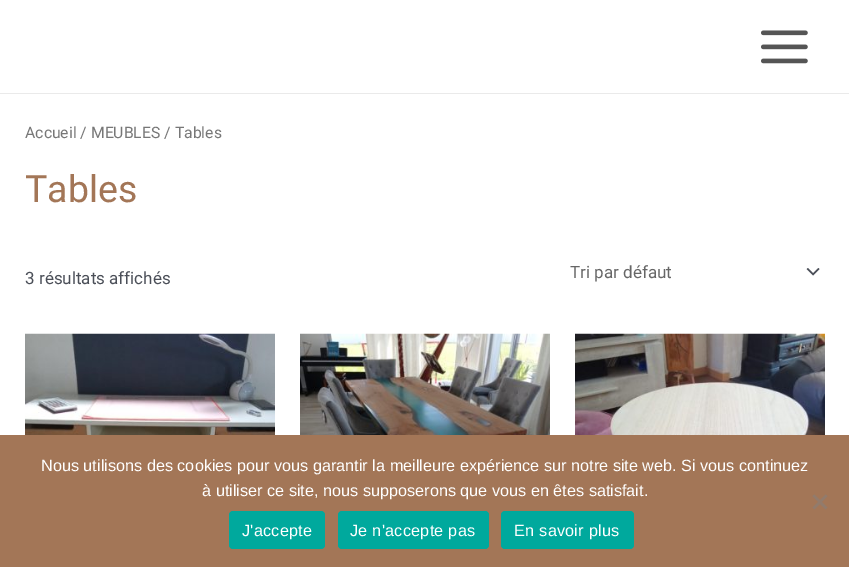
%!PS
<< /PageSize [849 567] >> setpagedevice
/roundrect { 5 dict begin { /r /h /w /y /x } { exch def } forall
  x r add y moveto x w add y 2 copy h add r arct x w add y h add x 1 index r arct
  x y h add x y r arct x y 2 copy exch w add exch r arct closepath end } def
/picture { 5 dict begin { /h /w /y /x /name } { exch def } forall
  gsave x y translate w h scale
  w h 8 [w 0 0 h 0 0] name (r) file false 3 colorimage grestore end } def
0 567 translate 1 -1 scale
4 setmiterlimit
1 setgray
0 0 849 567 rectfill
0.918 setgray
0 93 849 1 rectfill
(img1.rgb) 761 30 47 34 picture
/Roboto-Regular [15.75 0 0 -15.75 0 0] selectfont
0.467 setgray
25 138 moveto (Accueil / MEUBLES / Tables) show
/Roboto-Regular [37.5 0 0 -37.5 0 0] selectfont
0.639 0.463 0.341 setrgbcolor
25 202 moveto (Tables) show
/Roboto-Regular [17 0 0 -17 0 0] selectfont
0.294 0.31 0.345 setrgbcolor
25 284 moveto (3 résultats affichés) show
(img2.rgb) 806 268 14 8 picture
0.4 setgray
570 278 moveto (Tri par défaut) show
(img3.rgb) 25 333 250 102 picture
(img4.rgb) 300 333 250 102 picture
(img5.rgb) 575 333 250 102 picture
0.639 0.463 0.341 setrgbcolor
0 435 849 132 rectfill
/LiberationSans-Regular [16.25 0 0 -16.25 0 0] selectfont
1 setgray
41 471 moveto (Nous utilisons des cookies pour vous garantir la meilleure expérience sur notre site web. Si vous continuez) show
202 496 moveto (à utiliser ce site, nous supposerons que vous en êtes satisfait.) show
0.573 0.482 0.424 setrgbcolor
newpath 825.5 494.5 moveto 827.5 496 lineto 814.5 509.5 lineto 812.5 507.5 lineto closepath fill
newpath 812.5 496 moveto 814.5 494.5 lineto 827.5 507.5 lineto 825.5 509.5 lineto closepath fill
0 0.663 0.616 setrgbcolor
229 511 96 38 4 roundrect fill
1 setgray
242 536 moveto 0.25 0 (J'accepte) ashow
0 0.663 0.616 setrgbcolor
338 511 151 38 4 roundrect fill
1 setgray
350 536 moveto 0.25 0 (Je n'accepte pas) ashow
0 0.663 0.616 setrgbcolor
501 511 133 38 4 roundrect fill
1 setgray
514 536 moveto 0.25 0 (En savoir plus) ashow
showpage
